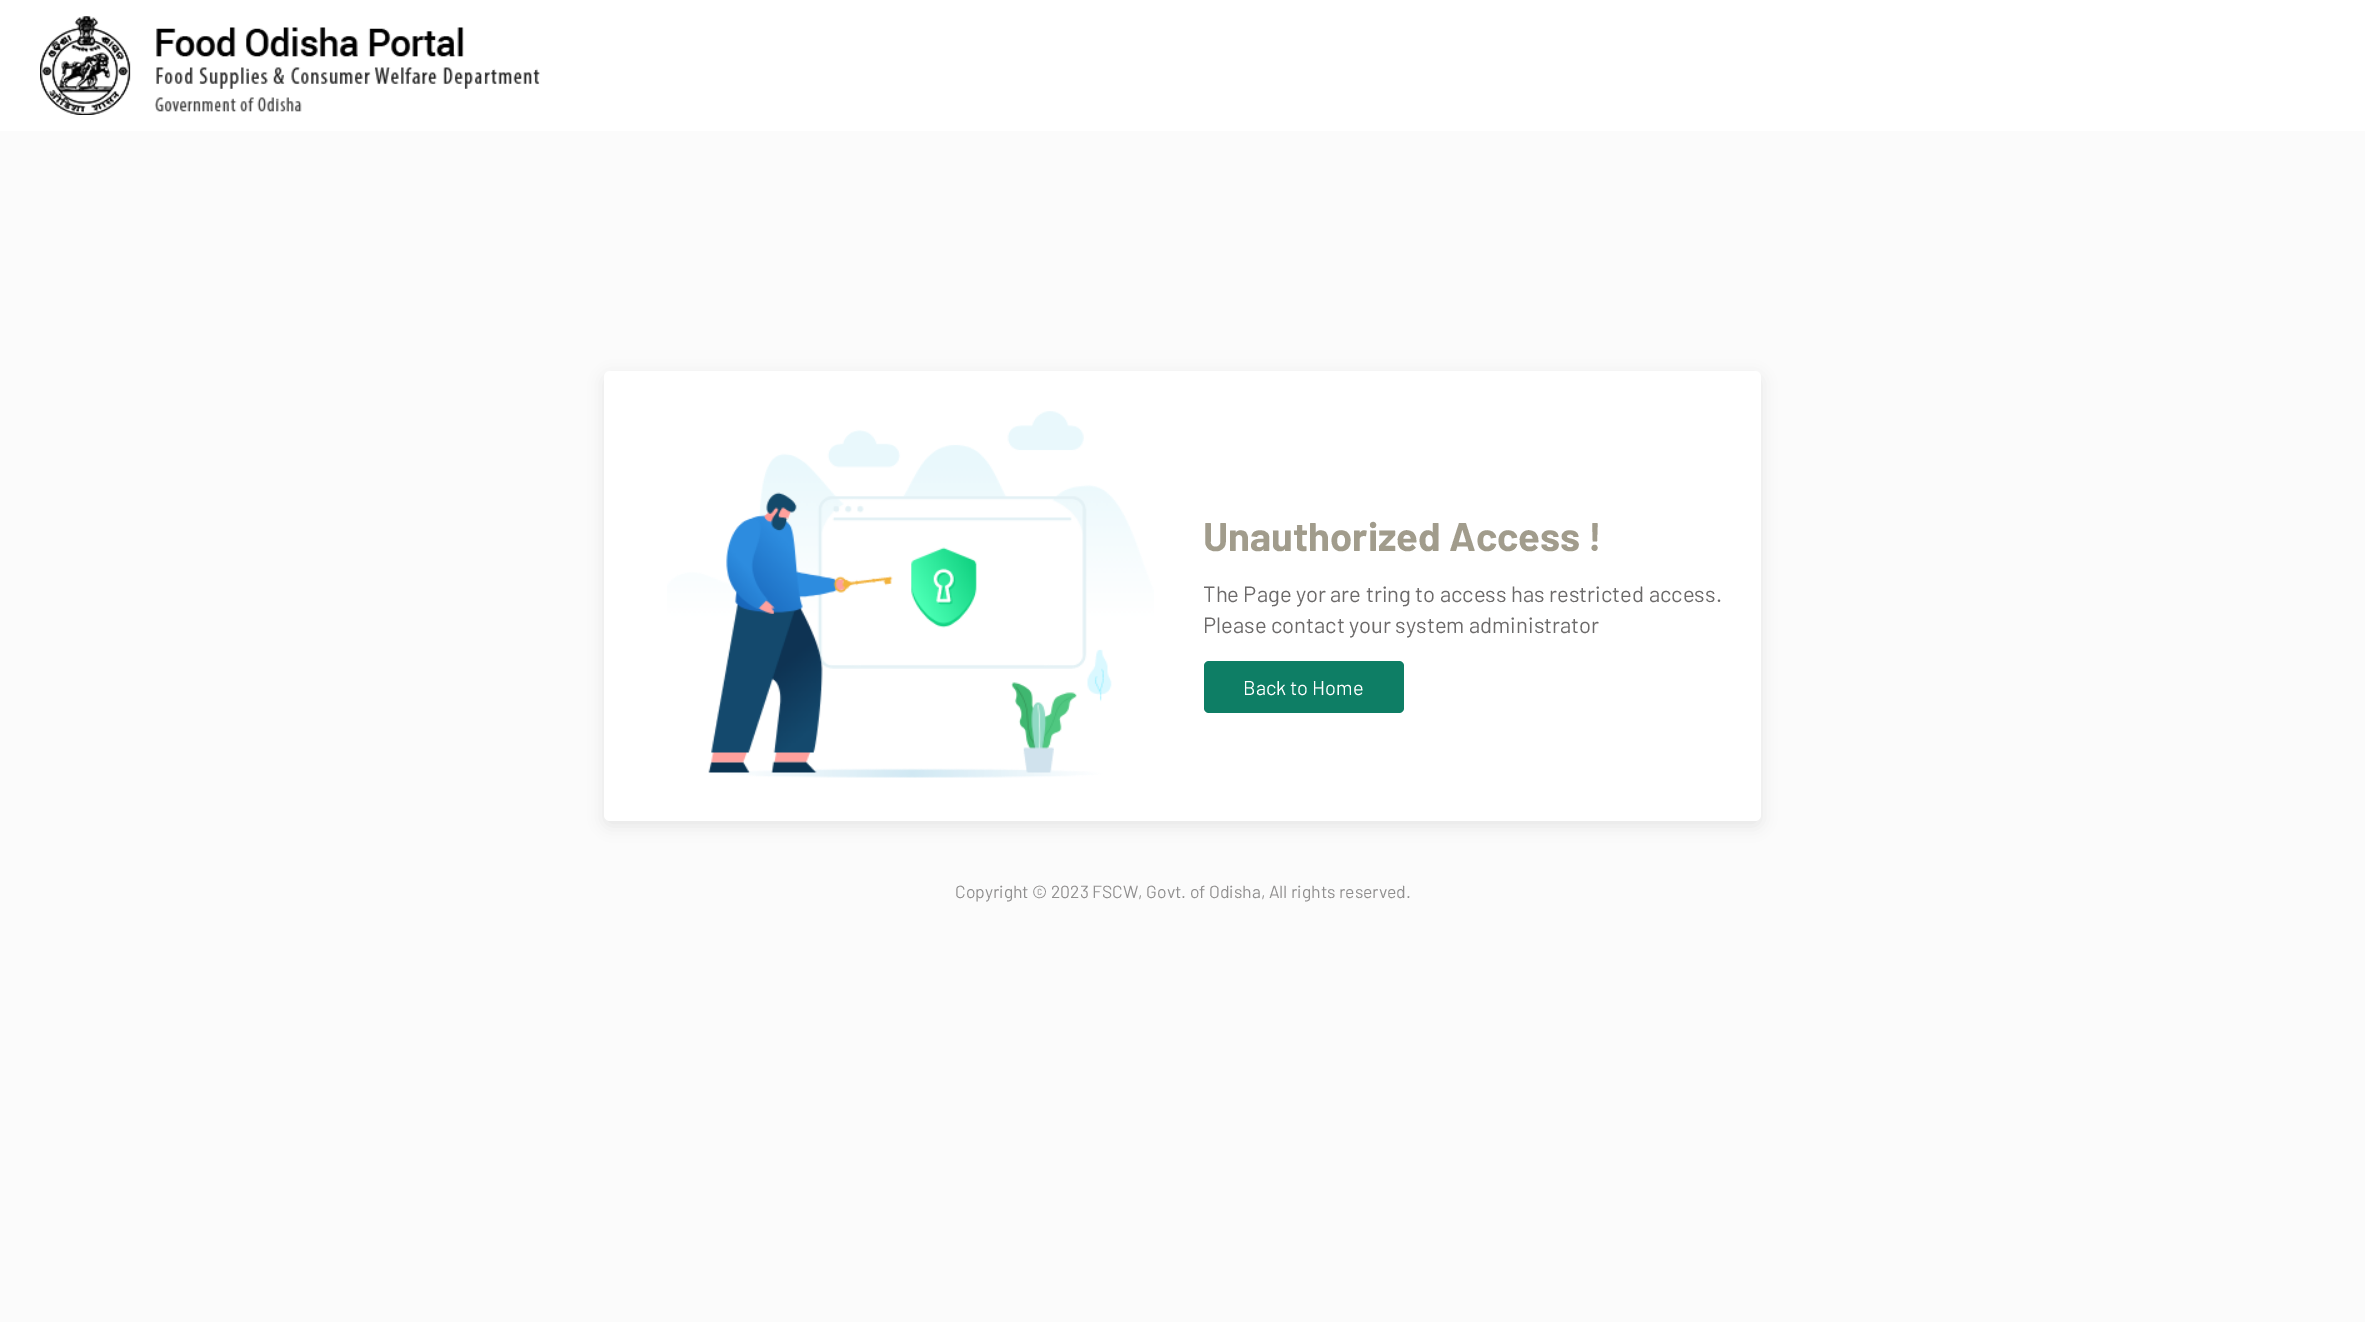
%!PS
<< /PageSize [2365 1322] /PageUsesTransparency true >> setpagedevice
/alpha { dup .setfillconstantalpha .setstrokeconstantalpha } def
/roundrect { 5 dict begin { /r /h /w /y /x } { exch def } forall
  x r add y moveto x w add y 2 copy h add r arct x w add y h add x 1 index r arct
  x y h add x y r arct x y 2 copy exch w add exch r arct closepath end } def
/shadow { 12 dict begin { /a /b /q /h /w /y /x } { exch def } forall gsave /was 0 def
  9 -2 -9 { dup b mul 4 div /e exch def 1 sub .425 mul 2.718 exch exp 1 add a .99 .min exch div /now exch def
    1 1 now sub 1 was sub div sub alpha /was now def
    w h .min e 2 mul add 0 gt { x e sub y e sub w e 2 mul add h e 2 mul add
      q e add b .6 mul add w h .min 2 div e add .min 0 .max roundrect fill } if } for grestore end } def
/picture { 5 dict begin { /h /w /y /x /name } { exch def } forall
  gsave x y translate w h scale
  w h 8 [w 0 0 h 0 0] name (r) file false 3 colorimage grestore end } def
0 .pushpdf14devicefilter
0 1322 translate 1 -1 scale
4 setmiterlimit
0.984 setgray
0 0 2365 1322 rectfill
1 setgray
0 0 2365 131 rectfill
(img1.rgb) 40 16 500 99 picture
0 setgray
604 376 1157 450 6 7.5 0.08 shadow
1 setgray
604 371 1157 450 6 roundrect fill
(img2.rgb) 667 411 487 367 picture
/Barlow-Bold [40 0 0 -40 0 0] selectfont
0.631 0.612 0.549 setrgbcolor
1203 551 moveto (Unauthorized Access !) show
/Barlow-Regular [22 0 0 -22 0 0] selectfont
0.424 0.416 0.416 setrgbcolor
1203 602 moveto (The Page yor are tring to access has restricted access.) show
1203 633 moveto (Please contact your system administrator) show
0.055 0.494 0.396 setrgbcolor
1204 661 200 52 5 roundrect fill
/Barlow-Regular [20 0 0 -20 0 0] selectfont
1 setgray
1243 695 moveto (Back to Home) show
/Barlow-Regular [17.5 0 0 -17.5 0 0] selectfont
0.565 0.561 0.561 setrgbcolor
955 898 moveto (Copyright © 2023 FSCW, Govt. of Odisha, All rights reserved.) show
.poppdf14devicefilter showpage
